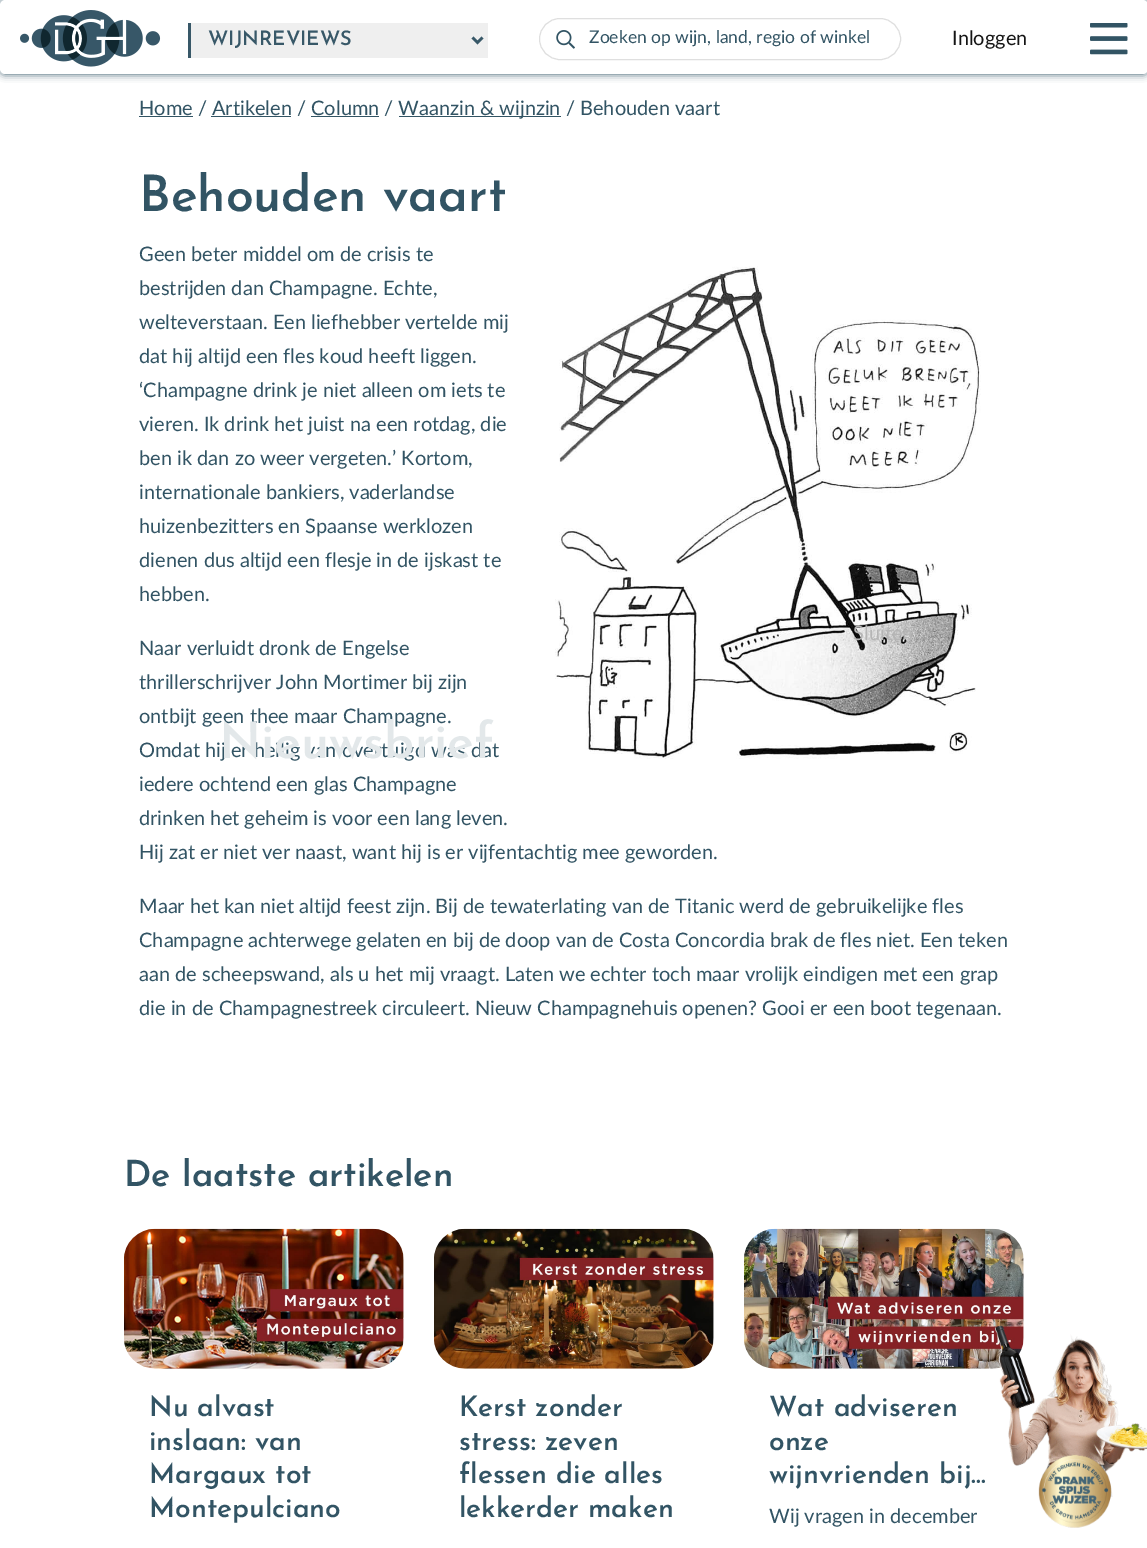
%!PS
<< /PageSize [1147 1548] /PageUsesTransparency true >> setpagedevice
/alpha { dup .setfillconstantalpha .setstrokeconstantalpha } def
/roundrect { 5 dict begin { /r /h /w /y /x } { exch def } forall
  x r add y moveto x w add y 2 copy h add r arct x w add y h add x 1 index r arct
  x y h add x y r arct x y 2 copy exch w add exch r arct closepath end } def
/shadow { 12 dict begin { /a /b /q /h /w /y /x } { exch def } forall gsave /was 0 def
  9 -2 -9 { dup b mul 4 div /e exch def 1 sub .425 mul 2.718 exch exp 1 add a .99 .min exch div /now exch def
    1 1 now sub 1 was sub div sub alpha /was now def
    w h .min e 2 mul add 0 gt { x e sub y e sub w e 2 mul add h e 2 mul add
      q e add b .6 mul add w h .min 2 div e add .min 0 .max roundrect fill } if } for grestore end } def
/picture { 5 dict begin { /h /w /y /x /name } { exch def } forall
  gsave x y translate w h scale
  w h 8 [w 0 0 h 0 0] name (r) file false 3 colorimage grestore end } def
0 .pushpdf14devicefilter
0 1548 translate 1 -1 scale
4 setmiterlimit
1 setgray
0 0 1147 1548 rectfill
0.196 0.329 0.392 setrgbcolor
0 0 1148 74 5 4 1 shadow
1 setgray
0 0 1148 74 5 roundrect fill
(img1.rgb) 20 10 141 57 picture
0.937 setgray
191 23 297 35 rectfill
0.22 0.345 0.408 setrgbcolor
188 23 3 35 rectfill
2.5 setlinewidth
newpath 472.5 37.5 moveto 477.5 42.5 lineto 482.5 37.5 lineto stroke
/JosefinSans-SemiBold [20 0 0 -20 0 0] selectfont
208 45 moveto (WIJNREVIEWS) show
(img2.rgb) 556 30 19 19 picture
0.875 setgray
1 setlinewidth
539.5 18.5 361 41 20.5 roundrect stroke
/Lato-Regular [17.5 0 0 -17.5 0 0] selectfont
0.196 0.329 0.392 setrgbcolor
589 43 moveto (Zoeken op wijn, land, regio of winkel) show
/Lato-Regular [20 0 0 -20 0 0] selectfont
0.082 setgray
952 45 moveto (Inloggen) show
(img3.rgb) 1090 23 38 32 picture
0.196 0.329 0.392 setrgbcolor
139 115 moveto (Home / Artikelen / Column /) show
139 116 54 1 rectfill
399 116 162 1 rectfill
398 115 moveto (Waanzin & wijnzin / Behouden vaart) show
211 116 80 1 rectfill
311 116 68 1 rectfill
/JosefinSans-SemiBold [50 0 0 -50 0 0] selectfont
139 211 moveto (Behouden vaart) show
/Lato-Regular [20 0 0 -20 0 0] selectfont
139 261 moveto (Geen beter middel om de crisis te) show
139 295 moveto (bestrijden dan Champagne. Echte,) show
139 329 moveto (welteverstaan. Een liefhebber vertelde mij) show
139 363 moveto (dat hij altijd een fles koud heeft liggen.) show
139 397 moveto (‘Champagne drink je niet alleen om iets te) show
139 431 moveto (vieren. Ik drink het juist na een rotdag, die) show
139 465 moveto (ben ik dan zo weer vergeten.’ Kortom,) show
139 499 moveto (internationale bankiers, vaderlandse) show
139 533 moveto (huizenbezitters en Spaanse werklozen) show
139 567 moveto (dienen dus altijd een flesje in de ijskast te) show
139 601 moveto (hebben.) show
(img4.rgb) 555 266 426 493 picture
139 655 moveto (Naar verluidt dronk de Engelse) show
139 689 moveto (thrillerschrijver John Mortimer bij zijn) show
139 723 moveto (ontbijt geen thee maar Champagne.) show
139 757 moveto (Omdat hij er heilig van overtuigd was dat) show
139 791 moveto (iedere ochtend een glas Champagne) show
139 825 moveto (drinken het geheim is voor een lang leven.) show
139 859 moveto (Hij zat er niet ver naast, want hij is er vijfentachtig mee geworden.) show
139 913 moveto (Maar het kan niet altijd feest zijn. Bij de tewaterlating van de Titanic werd de gebruikelijke fles) show
139 947 moveto (Champagne achterwege gelaten en bij de doop van de Costa Concordia brak de fles niet. Een teken) show
139 981 moveto (aan de scheepswand, als u het mij vraagt. Laten we echter toch maar vrolijk eindigen met een grap) show
139 1015 moveto (die in de Champagnestreek circuleert. Nieuw Champagnehuis openen? Gooi er een boot tegenaan.) show
0.71 setgray
853 640 moveto (Sluiten) show
/JosefinSans-SemiBold [50 0 0 -50 0 0] selectfont
0.89 0.91 0.918 setrgbcolor
219 758 moveto (Nieuwsbrief) show
/JosefinSans-SemiBold [36 0 0 -36 0 0] selectfont
0.196 0.329 0.392 setrgbcolor
124 1186 moveto (De laatste artikelen) show
(img5.rgb) 124 1228 280 141 picture
/JosefinSans-SemiBold [28 0 0 -28 0 0] selectfont
149 1416 moveto (Nu alvast) show
149 1450 moveto (inslaan: van) show
149 1483 moveto (Margaux tot) show
149 1517 moveto (Montepulciano) show
(img6.rgb) 434 1228 280 141 picture
459 1416 moveto (Kerst zonder) show
459 1450 moveto (stress: zeven) show
459 1483 moveto (flessen die alles) show
459 1517 moveto (lekkerder maken) show
(img7.rgb) 744 1228 280 141 picture
769 1416 moveto (Wat adviseren) show
769 1450 moveto (onze) show
769 1483 moveto (wijnvrienden bij...) show
/Lato-Regular [20 0 0 -20 0 0] selectfont
769 1523 moveto (Wij vragen in december) show
(img8.rgb) 994 1325 153 203 picture
.poppdf14devicefilter showpage
